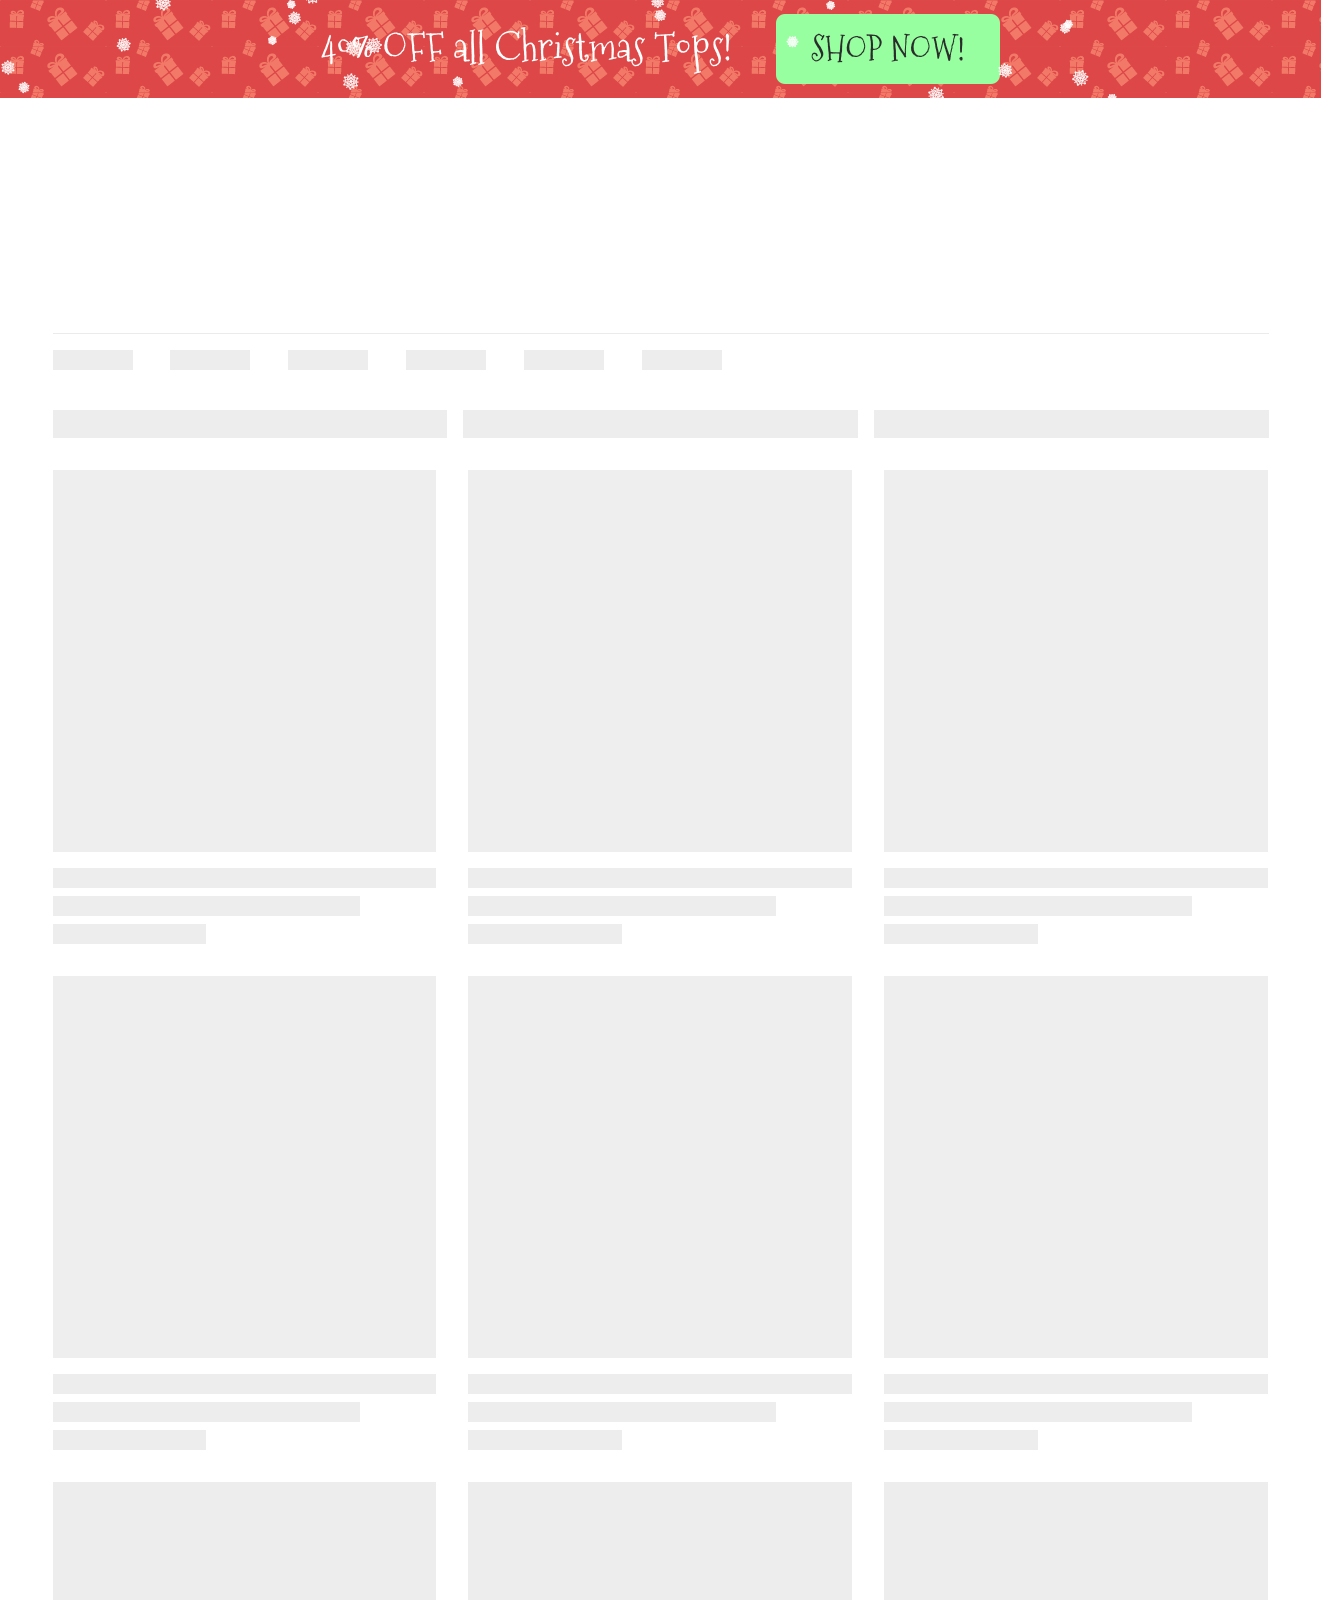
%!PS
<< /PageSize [1321 1600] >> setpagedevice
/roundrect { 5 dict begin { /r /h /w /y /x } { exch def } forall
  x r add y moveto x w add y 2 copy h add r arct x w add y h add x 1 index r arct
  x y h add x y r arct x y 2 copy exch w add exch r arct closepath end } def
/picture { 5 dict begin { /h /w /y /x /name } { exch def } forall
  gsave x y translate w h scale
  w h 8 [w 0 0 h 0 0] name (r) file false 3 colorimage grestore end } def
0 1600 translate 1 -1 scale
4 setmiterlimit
1 setgray
0 0 1321 1600 rectfill
(img1.rgb) 0 0 1321 98 picture
/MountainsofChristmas-Regular [40 0 0 -40 0 0] selectfont
321 61 moveto (40% OFF all Christmas Tops!) show
0.592 1 0.627 setrgbcolor
776 14 224 70 9 roundrect fill
/MountainsofChristmas-Regular [35 0 0 -35 0 0] selectfont
0.165 0.173 0.169 setrgbcolor
811 61 moveto (SHOP NOW!) show
(img2.rgb) 1 0 1116 98 picture
0.922 setgray
53 333 1216 1 rectfill
0.929 setgray
53 350 80 20 rectfill
170 350 80 20 rectfill
288 350 80 20 rectfill
406 350 80 20 rectfill
524 350 80 20 rectfill
642 350 80 20 rectfill
53 410 394 28 rectfill
463 410 395 28 rectfill
874 410 395 28 rectfill
0.933 setgray
53 470 383 382 rectfill
0.929 setgray
53 868 383 20 rectfill
53 896 307 20 rectfill
53 924 153 20 rectfill
0.933 setgray
468 470 384 382 rectfill
0.929 setgray
468 868 384 20 rectfill
468 896 308 20 rectfill
468 924 154 20 rectfill
0.933 setgray
884 470 384 382 rectfill
0.929 setgray
884 868 384 20 rectfill
884 896 308 20 rectfill
884 924 154 20 rectfill
0.933 setgray
53 976 383 382 rectfill
0.929 setgray
53 1374 383 20 rectfill
53 1402 307 20 rectfill
53 1430 153 20 rectfill
0.933 setgray
468 976 384 382 rectfill
0.929 setgray
468 1374 384 20 rectfill
468 1402 308 20 rectfill
468 1430 154 20 rectfill
0.933 setgray
884 976 384 382 rectfill
0.929 setgray
884 1374 384 20 rectfill
884 1402 308 20 rectfill
884 1430 154 20 rectfill
53 1482 383 118 rectfill
468 1482 384 118 rectfill
884 1482 384 118 rectfill
showpage
